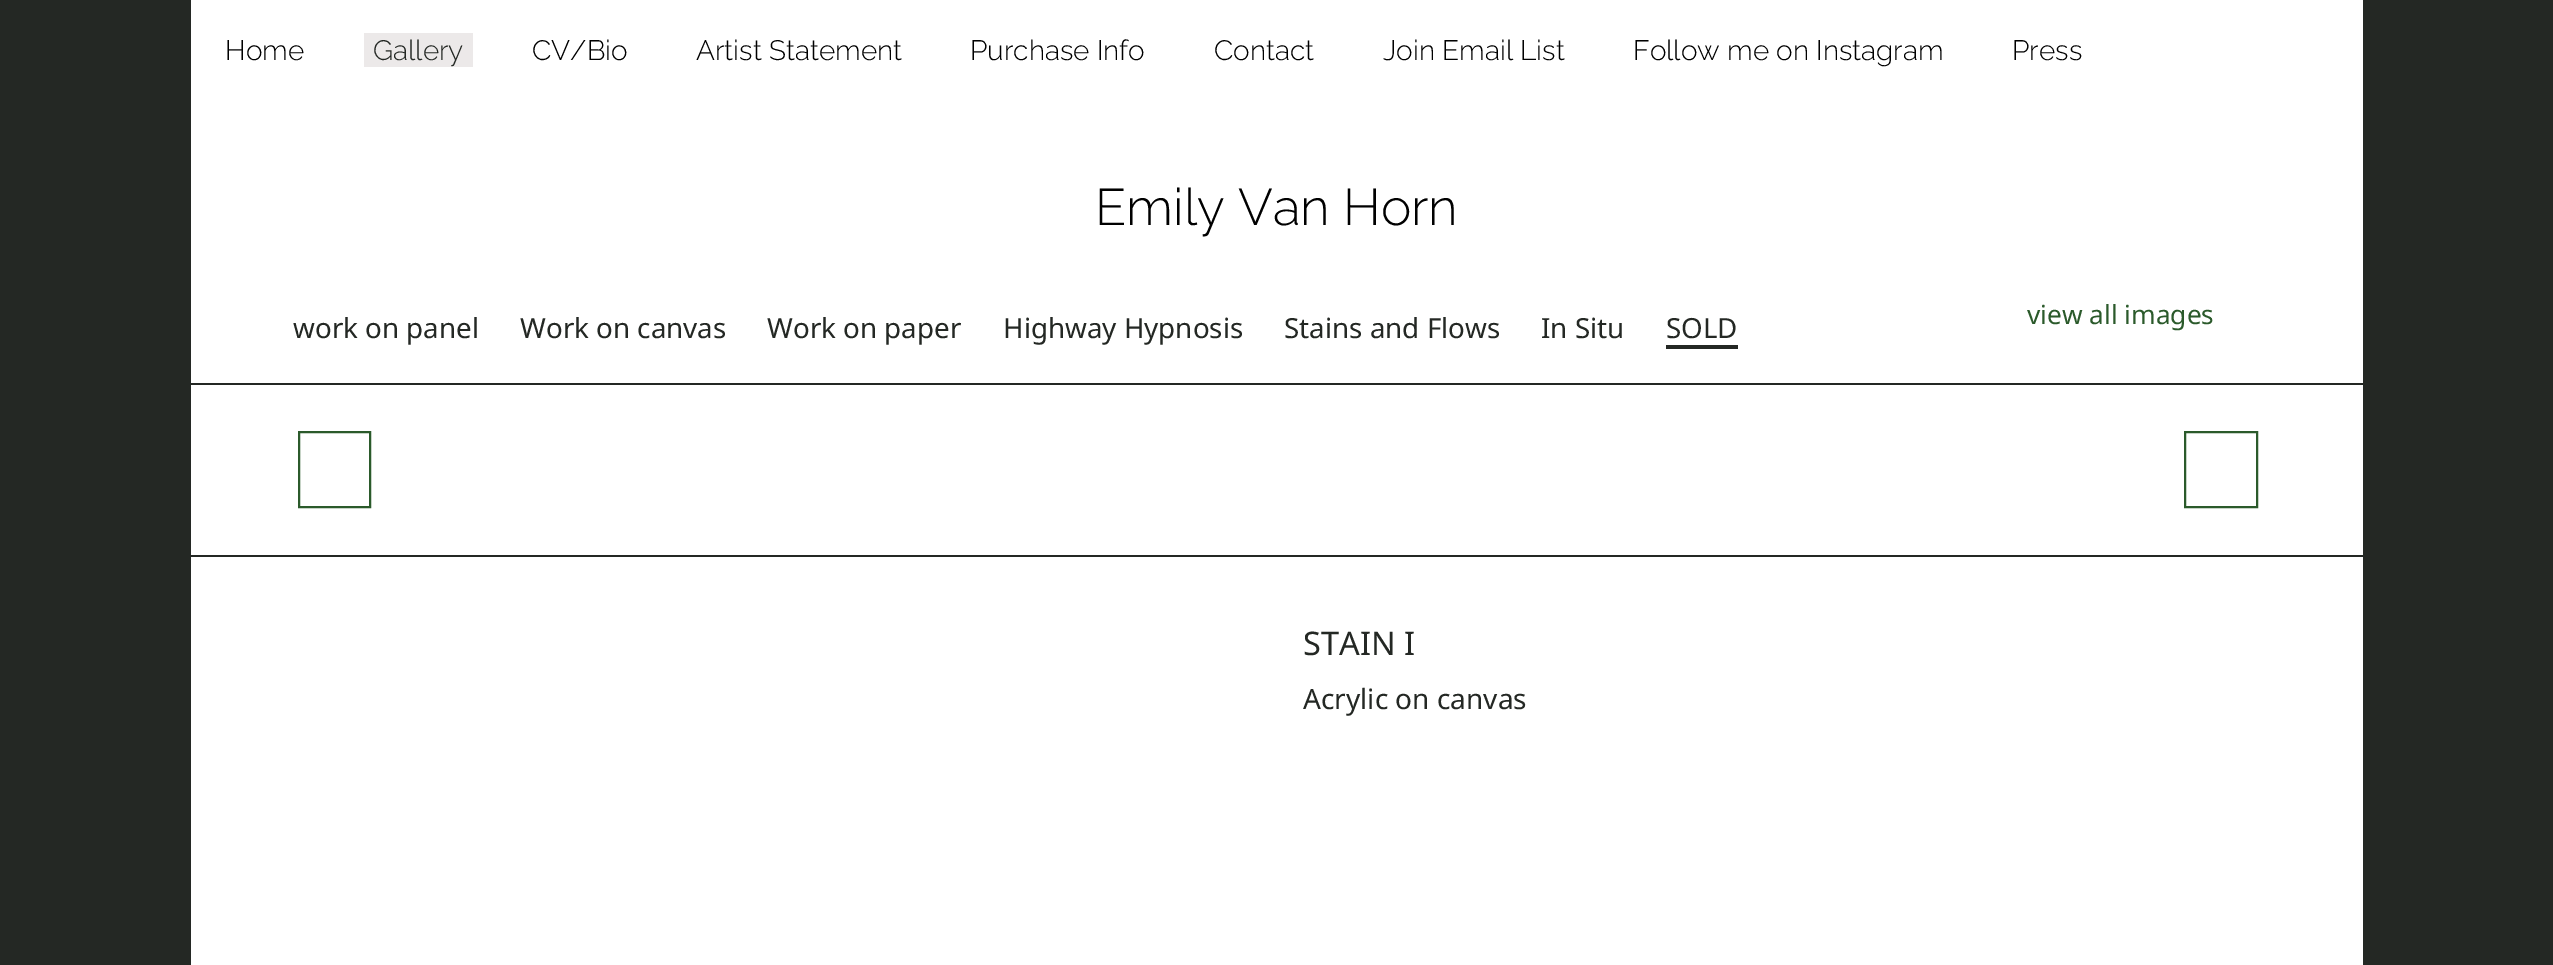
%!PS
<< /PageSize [2553 965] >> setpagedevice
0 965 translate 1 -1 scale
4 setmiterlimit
0.141 0.157 0.141 setrgbcolor
0 0 2553 965 rectfill
1 setgray
191 0 2172 965 rectfill
/Raleway-Thin [28 0 0 -28 0 0] selectfont
0 setgray
225 60 moveto (Home) show
0.925 0.914 0.914 setrgbcolor
364 33 109 34 rectfill
0.141 0.157 0.141 setrgbcolor
373 60 moveto (Gallery) show
0 setgray
532 60 moveto (CV/Bio) show
696 60 moveto (Artist Statement) show
970 60 moveto (Purchase Info) show
1214 60 moveto (Contact) show
1383 60 moveto (Join Email List) show
1633 60 moveto (Follow me on Instagram) show
2012 60 moveto (Press) show
/Raleway-Thin [51.25 0 0 -51.25 0 0] selectfont
1095 225 moveto (Emily Van Horn) show
/NotoSans-Regular [27.75 0 0 -27.75 0 0] selectfont
0.141 0.157 0.141 setrgbcolor
293 338 moveto (work on panel) show
520 338 moveto (Work on canvas) show
767 338 moveto (Work on paper) show
1003 338 moveto (Highway Hypnosis) show
1284 338 moveto (Stains and Flows) show
1541 338 moveto (In Situ) show
1666 345 72 4 rectfill
1666 338 moveto (SOLD) show
/NotoSans-Regular [26.25 0 0 -26.25 0 0] selectfont
0.169 0.353 0.169 setrgbcolor
2027 324 moveto (view all images) show
0.141 0.157 0.141 setrgbcolor
191 383 2172 2 rectfill
191 555 2172 2 rectfill
0.169 0.353 0.169 setrgbcolor
2 setlinewidth
299 432 71 75 rectstroke
2185 432 72 75 rectstroke
/NotoSans-Regular [32.5 0 0 -32.5 0 0] selectfont
0.141 0.157 0.141 setrgbcolor
1303 655 moveto (STAIN I) show
/NotoSans-Regular [28 0 0 -28 0 0] selectfont
1303 709 moveto (Acrylic on canvas) show
showpage
